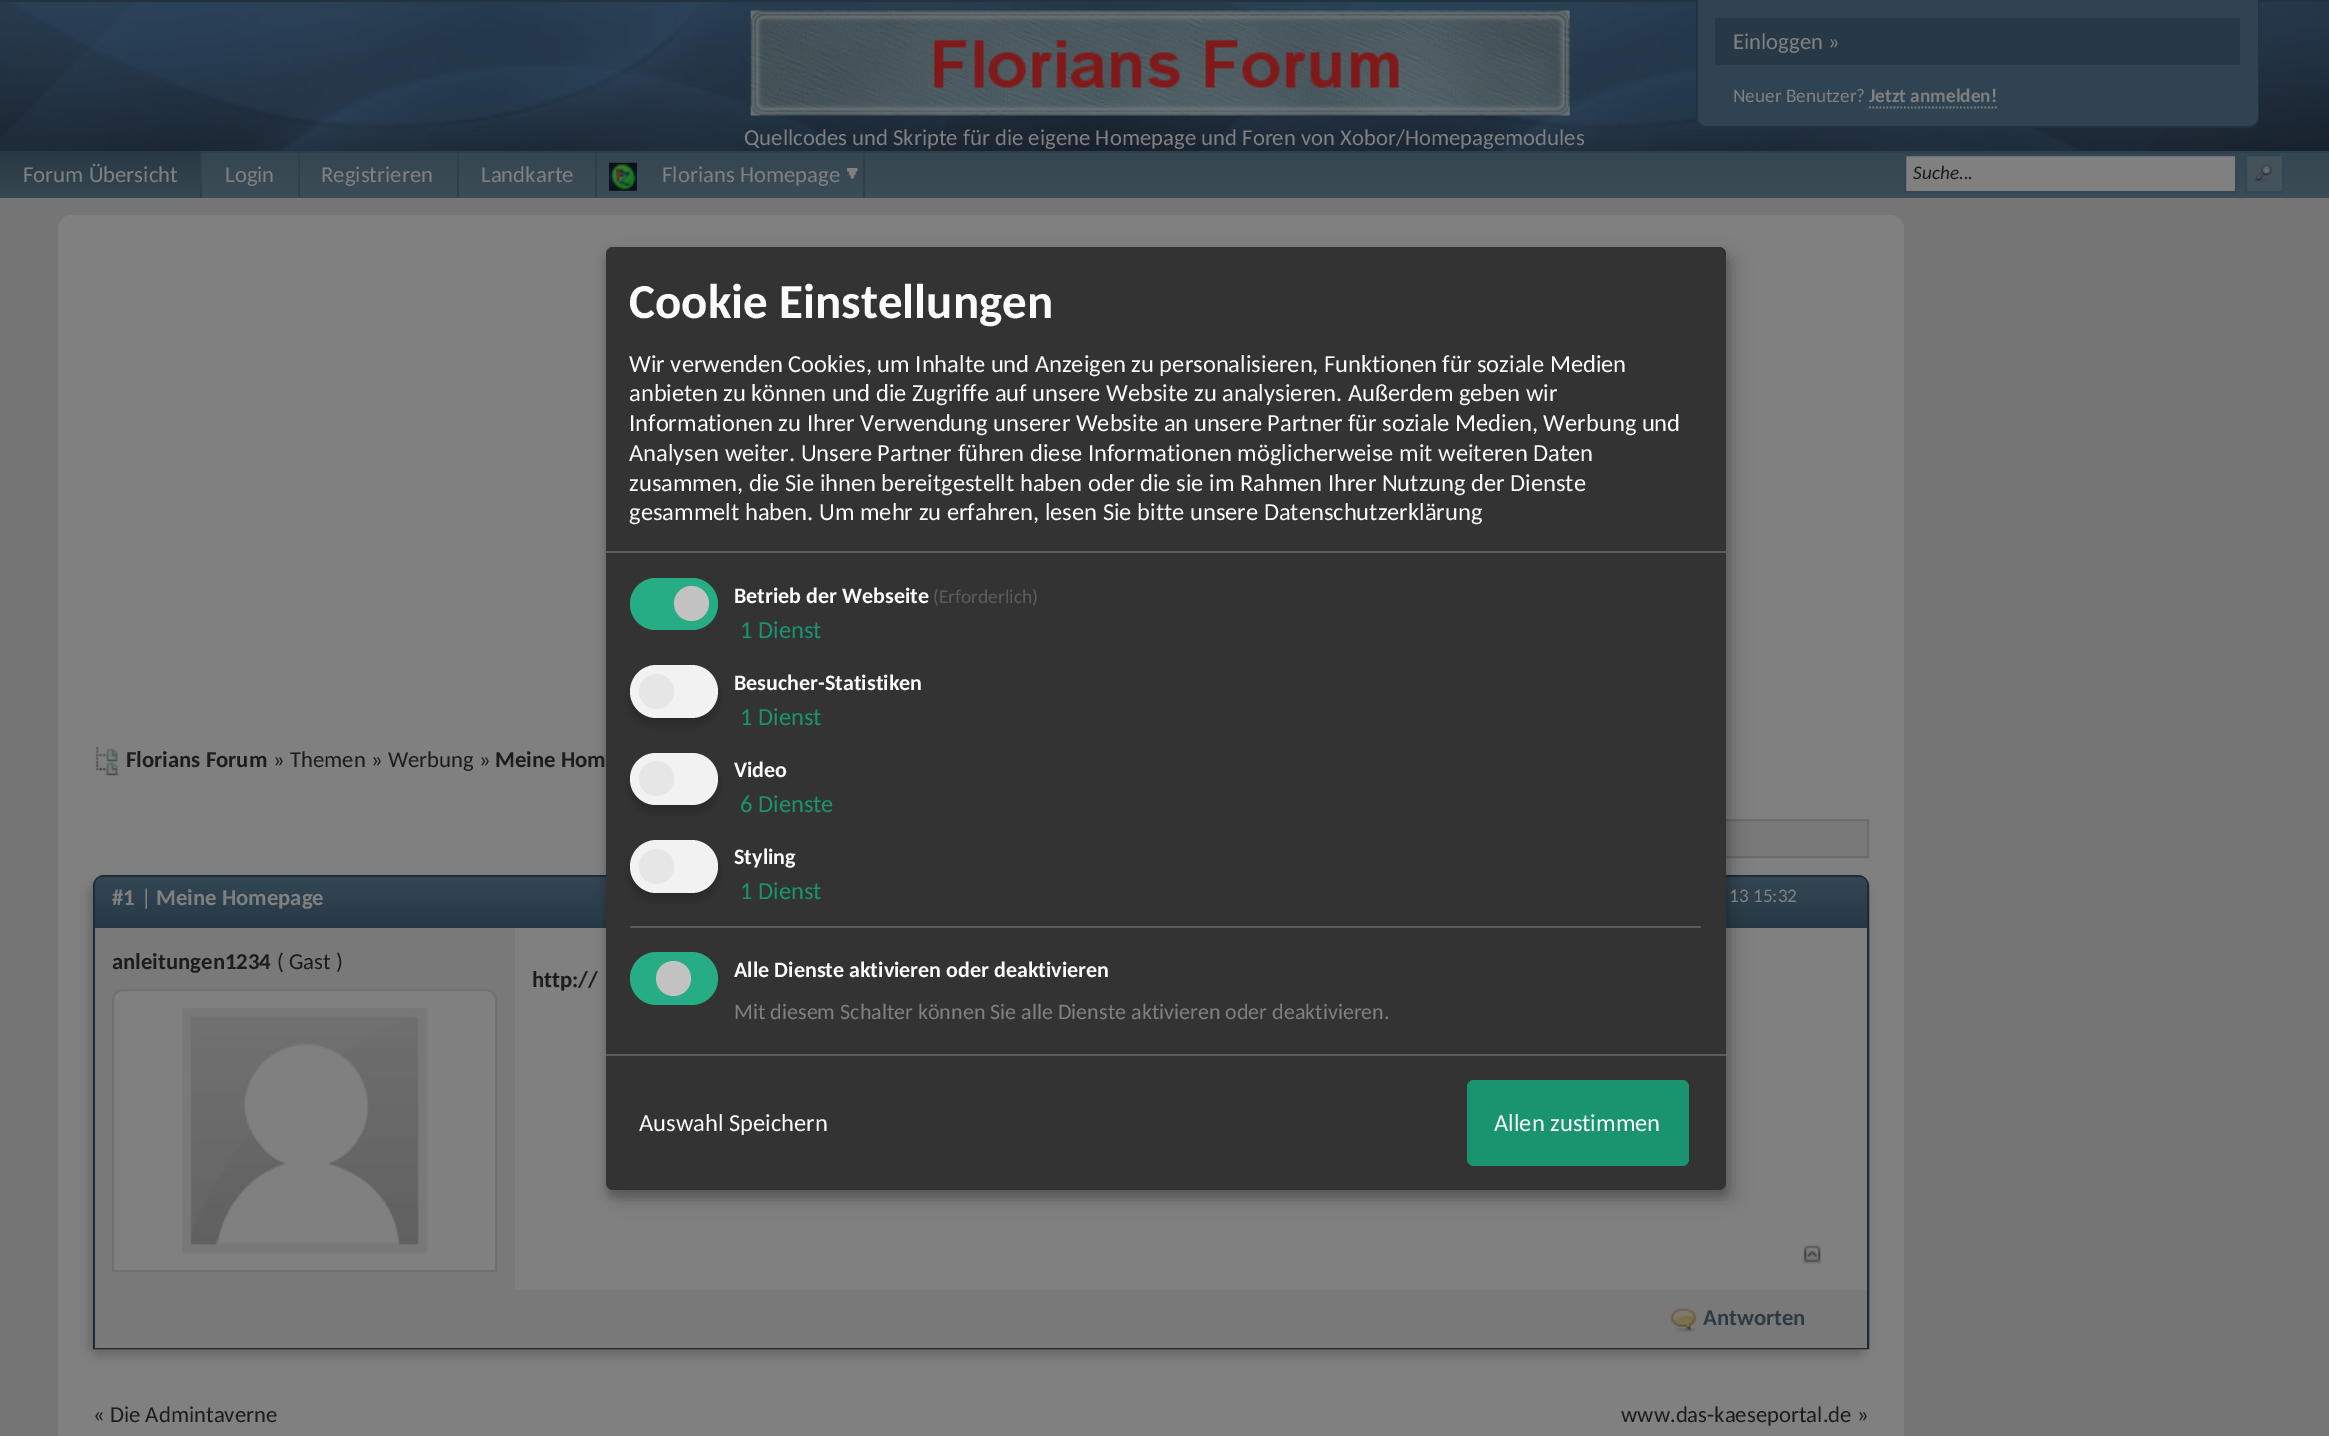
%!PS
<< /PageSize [2329 1436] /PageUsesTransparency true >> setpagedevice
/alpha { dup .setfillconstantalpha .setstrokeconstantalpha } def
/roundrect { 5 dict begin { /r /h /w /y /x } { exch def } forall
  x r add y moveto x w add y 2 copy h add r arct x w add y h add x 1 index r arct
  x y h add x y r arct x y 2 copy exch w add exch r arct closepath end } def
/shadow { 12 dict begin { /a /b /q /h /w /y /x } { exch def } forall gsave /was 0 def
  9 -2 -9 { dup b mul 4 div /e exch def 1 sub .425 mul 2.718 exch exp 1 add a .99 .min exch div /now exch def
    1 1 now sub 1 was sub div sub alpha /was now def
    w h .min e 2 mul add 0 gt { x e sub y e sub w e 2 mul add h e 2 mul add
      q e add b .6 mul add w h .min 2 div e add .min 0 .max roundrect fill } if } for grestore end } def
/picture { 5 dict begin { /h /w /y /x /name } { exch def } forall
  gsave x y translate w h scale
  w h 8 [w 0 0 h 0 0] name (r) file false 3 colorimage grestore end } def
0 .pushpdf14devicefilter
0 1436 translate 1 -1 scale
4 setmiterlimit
0.459 setgray
0 0 2329 1436 rectfill
0.137 0.196 0.243 setrgbcolor
0 0 2329 2 rectfill
(img1.rgb) 0 2 2329 149 picture
0.184 0.263 0.322 setrgbcolor
newpath 1696 0 moveto 2259 0 lineto 2259 117 lineto 2259 123 2254 128 2248 128 curveto 1707 128 lineto 1701 128 1696 123 1696 117 curveto closepath fill
0.137 0.196 0.243 setrgbcolor
newpath 1696 0 moveto 2259 0 lineto 2259 117 lineto 2259 123 2255 128 2249 128 curveto 1706 128 lineto 1700 128 1696 123 1696 117 curveto closepath 1698 0 moveto 2258 0 lineto 2258 117 lineto 2258 122 2254 126 2249 126 curveto 1706 126 lineto 1701 126 1698 122 1698 117 curveto closepath eofill
0.153 0.224 0.275 setrgbcolor
1715 18 525 47 rectfill
/Carlito-Regular [22.75 0 0 -22.75 0 0] selectfont
0.502 setgray
1733 49 moveto (Einloggen ») show
/Carlito-Regular [19.25 0 0 -19.25 0 0] selectfont
1733 102 moveto (Neuer Benutzer?) show
/Carlito-Bold [19.25 0 0 -19.25 0 0] selectfont
1869 102 moveto (Jetzt anmelden!) show
1.8 setlinewidth
[1.75 1.75] 0 setdash
newpath 1869 107.5 moveto 1997 107.5 lineto stroke
(img2.rgb) 750 10 820 106 picture
/Carlito-Regular [22.75 0 0 -22.75 0 0] selectfont
744 145 moveto (Quellcodes und Skripte für die eigene Homepage und Foren von Xobor/Homepagemodules) show
gsave newpath 202 153 moveto 2329 153 lineto 2329 198 lineto 202 198 lineto closepath clip newpath
<< /ShadingType 2 /ColorSpace /DeviceRGB /Coords [0 151 0 198] /Extend [true true] /Function << /FunctionType 2 /Domain [0 1] /C0 [0.204 0.275 0.318] /C1 [0.235 0.298 0.337] /N 1 >> >> shfill grestore
0.18 0.251 0.294 setrgbcolor
202 151 2127 2 rectfill
gsave newpath 0 151 moveto 200 151 lineto 200 198 lineto 0 198 lineto closepath clip newpath
<< /ShadingType 2 /ColorSpace /DeviceRGB /Coords [0 151 0 198] /Extend [true true] /Function << /FunctionType 2 /Domain [0 1] /C0 [0.161 0.224 0.263] /C1 [0.204 0.275 0.318] /N 1 >> >> shfill grestore
200 151 2 47 rectfill
0.502 setgray
23 182 moveto (Forum Übersicht) show
225 182 moveto (Login) show
0.18 0.251 0.294 setrgbcolor
298 151 2 47 rectfill
0.502 setgray
321 182 moveto (Registrieren) show
0.18 0.251 0.294 setrgbcolor
457 151 2 47 rectfill
0.502 setgray
481 182 moveto (Landkarte) show
0.18 0.251 0.294 setrgbcolor
863 151 2 47 rectfill
595 151 2 47 rectfill
(img3.rgb) 609 162 28 29 picture
0.502 setgray
662 182 moveto (Florians Homepage) show
(img4.rgb) 847 168 11 11 picture
newpath 1905 155 moveto 2236 155 lineto 2236 192 lineto 1905 192 lineto closepath gsave fill grestore
0.2 0.275 0.329 setrgbcolor
2 setlinewidth
[] 0 setdash
stroke
/Carlito-Italic [19.25 0 0 -19.25 0 0] selectfont
0.11 setgray
1913 179 moveto (Suche...) show
0.267 0.322 0.357 setrgbcolor
2247 156 35 35 rectfill
(img5.rgb) 2254 164 18 19 picture
0.2 0.275 0.329 setrgbcolor
2246 155 37 37 rectstroke
0.502 setgray
58 215 1846 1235 14 roundrect fill
0.475 setgray
1726 821 141 35 rectfill
0.424 setgray
1165 820 703 37 rectstroke
0.4 setgray
89 882 1777 474 11 5 1 shadow
0.118 0.169 0.208 setrgbcolor
newpath 104 876 moveto 1858 876 lineto 1863.5 876 1868 880.5 1868 886 curveto 1868 1348 lineto 94 1348 lineto 94 886 lineto 94 880.5 98.5 876 104 876 curveto closepath stroke
gsave newpath 104 877 moveto 1858 877 lineto 1863 877 1867 881 1867 886 curveto 1867 928 lineto 95 928 lineto 95 886 lineto 95 881 99 877 104 877 curveto closepath clip newpath
<< /ShadingType 2 /ColorSpace /DeviceRGB /Coords [95 877 95 928] /Extend [true true] /Function << /FunctionType 2 /Domain [0 1] /C0 [0.2 0.275 0.329] /C1 [0.153 0.224 0.275] /N 1 >> >> shfill grestore
0.502 setgray
515 928 1352 362 rectfill
0 setgray
614 256 1120 943 7 9 0.19 shadow
606 254 1120 943 7 5 0.2 shadow
0.2 setgray
606 247 1120 943 7 roundrect fill
0.361 setgray
606 551 1120 2 rectfill
/Carlito-Bold [49 0 0 -49 0 0] selectfont
0.98 setgray
629 318 moveto (Cookie Einstellungen) show
/Carlito-Regular [24.5 0 0 -24.5 0 0] selectfont
629 372 moveto (Wir verwenden Cookies, um Inhalte und Anzeigen zu personalisieren, Funktionen für soziale Medien) show
629 401 moveto (anbieten zu können und die Zugriffe auf unsere Website zu analysieren. Außerdem geben wir) show
629 431 moveto (Informationen zu Ihrer Verwendung unserer Website an unsere Partner für soziale Medien, Werbung und) show
629 461 moveto (Analysen weiter. Unsere Partner führen diese Informationen möglicherweise mit weiteren Daten) show
629 491 moveto (zusammen, die Sie ihnen bereitgestellt haben oder die sie im Rahmen Ihrer Nutzung der Dienste) show
629 520 moveto (gesammelt haben. Um mehr zu erfahren, lesen Sie bitte unsere Datenschutzerklärung) show
0.153 0.678 0.522 setrgbcolor
630 578 88 52 26 roundrect fill
0.761 setgray
newpath 691.5 603.5 17.5 0 360 arc closepath fill
/Carlito-Bold [22.05 0 0 -22.05 0 0] selectfont
0.98 setgray
734 603 moveto (Betrieb der Webseite) show
/Carlito-Regular [19.5 0 0 -19.5 0 0] selectfont
0.361 setgray
933 603 moveto (\(Erforderlich\)) show
/Carlito-Regular [24.5 0 0 -24.5 0 0] selectfont
0.102 0.576 0.435 setrgbcolor
740 638 moveto (1 Dienst) show
0 setgray
630 672 88 53 26.5 5 0.2 shadow
0.949 setgray
630 665 88 53 26.5 roundrect fill
0.902 setgray
newpath 656.5 691.5 17.5 0 360 arc closepath fill
/Carlito-Bold [22.05 0 0 -22.05 0 0] selectfont
0.98 setgray
734 690 moveto (Besucher-Statistiken) show
/Carlito-Regular [24.5 0 0 -24.5 0 0] selectfont
0.102 0.576 0.435 setrgbcolor
740 725 moveto (1 Dienst) show
0 setgray
630 760 88 52 26 5 0.2 shadow
0.949 setgray
630 753 88 52 26 roundrect fill
0.902 setgray
newpath 656.5 778.5 17.5 0 360 arc closepath fill
/Carlito-Bold [22.05 0 0 -22.05 0 0] selectfont
0.98 setgray
734 777 moveto (Video) show
/Carlito-Regular [24.5 0 0 -24.5 0 0] selectfont
0.102 0.576 0.435 setrgbcolor
740 812 moveto (6 Dienste) show
0 setgray
630 847 88 53 26.5 5 0.2 shadow
0.949 setgray
630 840 88 53 26.5 roundrect fill
0.902 setgray
newpath 656.5 866.5 17.5 0 360 arc closepath fill
/Carlito-Bold [22.05 0 0 -22.05 0 0] selectfont
0.98 setgray
734 864 moveto (Styling) show
/Carlito-Regular [24.5 0 0 -24.5 0 0] selectfont
0.102 0.576 0.435 setrgbcolor
740 899 moveto (1 Dienst) show
0.361 setgray
630 926 1071 2 rectfill
0.153 0.678 0.522 setrgbcolor
630 952 88 53 26.5 roundrect fill
0.761 setgray
newpath 673.5 978.5 17.5 0 360 arc closepath fill
/Carlito-Bold [22.05 0 0 -22.05 0 0] selectfont
0.98 setgray
734 977 moveto (Alle Dienste aktivieren oder deaktivieren) show
/Carlito-Regular [22.05 0 0 -22.05 0 0] selectfont
0.502 setgray
734 1019 moveto (Mit diesem Schalter können Sie alle Dienste aktivieren oder deaktivieren.) show
0.361 setgray
606 1054 1120 2 rectfill
/Carlito-Regular [24.5 0 0 -24.5 0 0] selectfont
0.98 setgray
639 1131 moveto (Auswahl Speichern) show
0.102 0.576 0.435 setrgbcolor
1467 1080 222 86 7 roundrect fill
0.98 setgray
1494 1131 moveto (Allen zustimmen) show
(img6.rgb) 95 747 25 29 picture
/Carlito-Bold [22.75 0 0 -22.75 0 0] selectfont
0.11 setgray
126 767 moveto (Florians Forum) show
/Carlito-Regular [22.75 0 0 -22.75 0 0] selectfont
273 767 moveto (» Themen » Werbung ») show
/Carlito-Bold [22.75 0 0 -22.75 0 0] selectfont
495 767 moveto (Meine Hom) show
0.502 setgray
112 905 moveto (#1) show
/Carlito-Regular [22.75 0 0 -22.75 0 0] selectfont
141 905 moveto (|) show
/Carlito-Bold [22.75 0 0 -22.75 0 0] selectfont
156 905 moveto (Meine Homepage) show
/Carlito-Regular [19.25 0 0 -19.25 0 0] selectfont
1729 902 moveto (13 15:32) show
0.475 setgray
95 928 420 362 rectfill
/Carlito-Bold [22.75 0 0 -22.75 0 0] selectfont
0.11 setgray
112 969 moveto (anleitungen1234) show
/Carlito-Regular [22.75 0 0 -22.75 0 0] selectfont
277 969 moveto (\( Gast \)) show
0.502 setgray
newpath 123 990 moveto 486 990 lineto 491.5 990 496 994.5 496 1000 curveto 496 1271 lineto 113 1271 lineto 113 1000 lineto 113 994.5 117.5 990 123 990 curveto closepath gsave fill grestore
0.439 setgray
stroke
(img7.rgb) 182 1008 246 246 picture
/Carlito-Bold [22.75 0 0 -22.75 0 0] selectfont
0.11 setgray
532 987 moveto (http://) show
0.475 setgray
95 1290 1772 58 rectfill
(img8.rgb) 1670 1308 27 24 picture
0.176 0.227 0.255 setrgbcolor
1703 1325 moveto (Antworten) show
(img9.rgb) 1802 1245 20 19 picture
/Carlito-Regular [22.75 0 0 -22.75 0 0] selectfont
0.11 setgray
93 1422 moveto (« Die Admintaverne) show
1621 1422 moveto (www.das-kaeseportal.de ») show
.poppdf14devicefilter showpage
